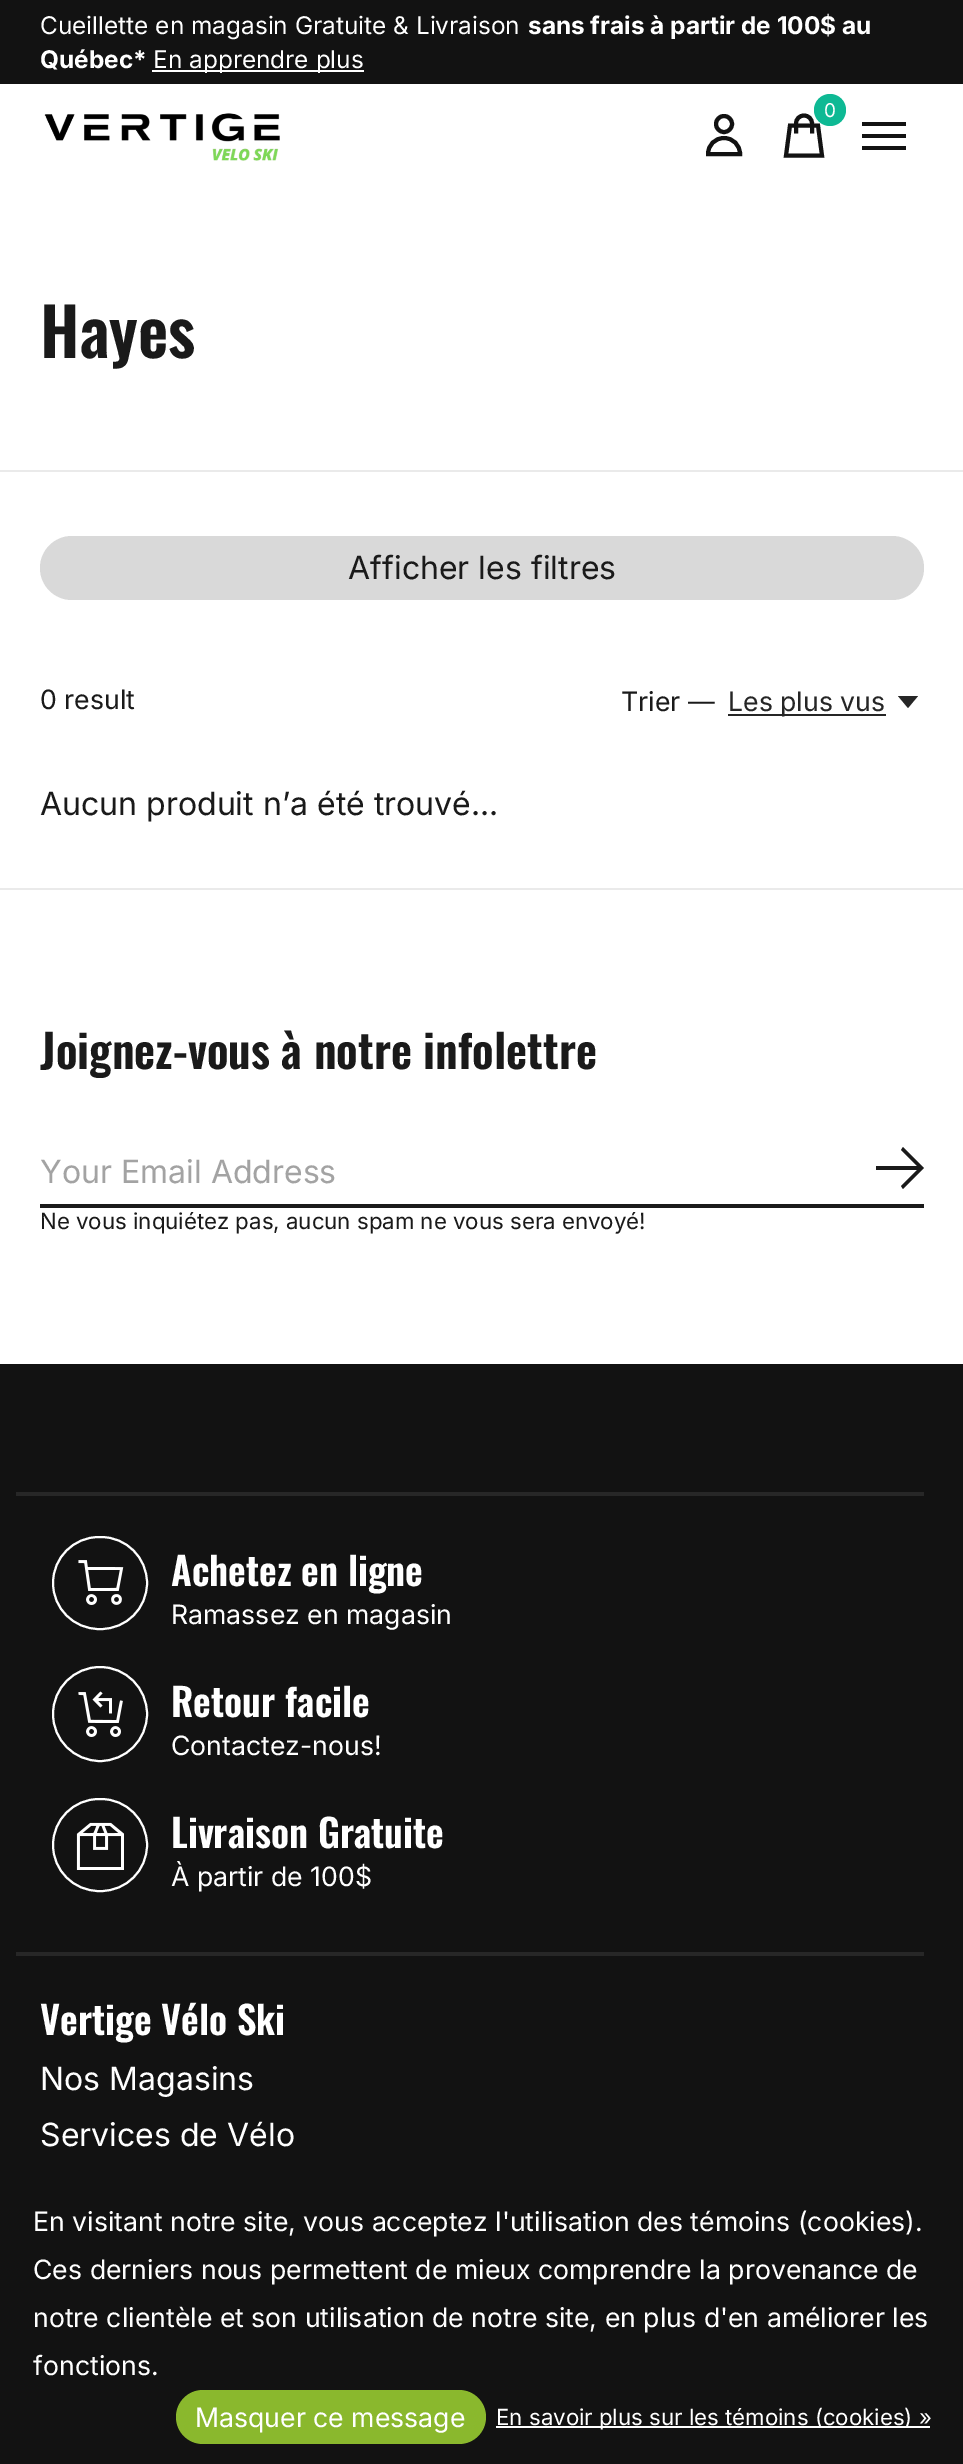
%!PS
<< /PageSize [963 2464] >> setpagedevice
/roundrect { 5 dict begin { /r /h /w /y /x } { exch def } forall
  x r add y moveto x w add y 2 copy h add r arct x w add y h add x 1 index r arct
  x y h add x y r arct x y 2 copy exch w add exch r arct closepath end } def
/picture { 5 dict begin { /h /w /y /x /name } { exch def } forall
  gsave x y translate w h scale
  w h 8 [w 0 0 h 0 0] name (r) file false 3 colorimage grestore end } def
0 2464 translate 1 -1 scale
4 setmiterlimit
1 setgray
0 0 963 2464 rectfill
0.071 setgray
0 0 963 84 rectfill
/Inter-Regular [24.4 0 0 -24.4 0 0] selectfont
1 setgray
40 34 moveto (Cueillette en magasin Gratuite & Livraison) show
/Inter-Bold [24.4 0 0 -24.4 0 0] selectfont
528 34 moveto (sans frais à partir de 100$ au) show
40 68 moveto (Québec*) show
152 70 212 2 rectfill
/Inter-Regular [24.4 0 0 -24.4 0 0] selectfont
153 68 moveto (En apprendre plus) show
0.071 setgray
4 setlinewidth
2 setlinecap
newpath 822 155.5 moveto 786 155.5 lineto 790 125.5 lineto 818 125.5 lineto closepath 796 131.5 moveto 796 123.5 lineto 796 119 799.5 115.5 804 115.5 curveto 808.5 115.5 812 119 812 123.5 curveto 812 131.5 lineto stroke
0.055 0.725 0.58 setrgbcolor
newpath 830 110 16 0 360 arc closepath fill
/Inter-Regular [19 0 0 -19 0 0] selectfont
1 setgray
824 117 moveto (0) show
0.071 setgray
0 setlinecap
newpath 724 124 8 0 360 arc closepath stroke
2 setlinecap
newpath 724 138 moveto 715 138 708 145 708 154 curveto 740 154 lineto 740 145 733 138 724 138 curveto closepath stroke
862 122 44 4 rectfill
862 134 44 4 rectfill
862 146 44 4 rectfill
(img1.rgb) 44 113 236 48 picture
0.918 setgray
0 470 963 2 rectfill
/Oswald-SemiBold [66 0 0 -66 0 0] selectfont
0.102 setgray
40 358 moveto (Hayes) show
0.918 setgray
0 888 963 2 rectfill
0.851 setgray
40 536 884 64 32 roundrect fill
/Inter-Regular [32 0 0 -32 0 0] selectfont
0.102 setgray
348 579 moveto (Afficher les filtres) show
/Inter-Regular [26.65 0 0 -26.65 0 0] selectfont
40 709 moveto (0 result) show
621 711 moveto (Trier —) show
0.149 setgray
728 714 158 2 rectfill
728 711 moveto (Les plus vus) show
newpath 898 696 moveto 908 708 lineto 918 696 lineto closepath fill
/Inter-Regular [32 0 0 -32 0 0] selectfont
0.102 setgray
40 815 moveto (Aucun produit n’a été trouvé...) show
/Oswald-SemiBold [46 0 0 -46 0 0] selectfont
40 1069 moveto (Joignez-vous à notre infolettre) show
40 1204 884 4 rectfill
/Inter-Regular [32 0 0 -32 0 0] selectfont
0.639 setgray
40 1183 moveto (Your Email Address) show
0.102 setgray
newpath 903 1189 moveto 924 1168 lineto 903 1147 lineto 901 1150 lineto 917 1166 lineto 876 1166 lineto 876 1170 lineto 917 1170 lineto 901 1186 lineto closepath fill
/Inter-Regular [22.25 0 0 -22.25 0 0] selectfont
40 1229 moveto (Ne vous inquiétez pas, aucun spam ne vous sera envoyé!) show
0.071 setgray
0 1364 963 1100 rectfill
0.153 setgray
16 1492 908 4 rectfill
16 1952 908 4 rectfill
1 setgray
2 setlinewidth
0 setlinecap
53 1537 94 92 46 roundrect stroke
(img2.rgb) 78 1560 46 45 picture
/Oswald-SemiBold [38.5 0 0 -38.5 0 0] selectfont
171 1586 moveto (Achetez en ligne) show
/Inter-Regular [26.65 0 0 -26.65 0 0] selectfont
171 1624 moveto (Ramassez en magasin) show
newpath 100 1714 47 0 360 arc closepath stroke
(img3.rgb) 78 1691 45 46 picture
/Oswald-SemiBold [38.5 0 0 -38.5 0 0] selectfont
171 1717 moveto (Retour facile) show
/Inter-Regular [26.65 0 0 -26.65 0 0] selectfont
171 1755 moveto (Contactez-nous!) show
53 1799 94 92 46 roundrect stroke
(img4.rgb) 76 1822 48 48 picture
/Oswald-SemiBold [38.5 0 0 -38.5 0 0] selectfont
171 1848 moveto (Livraison Gratuite) show
/Inter-Regular [26.65 0 0 -26.65 0 0] selectfont
171 1886 moveto (À partir de 100$) show
/Oswald-SemiBold [38.5 0 0 -38.5 0 0] selectfont
40 2035 moveto (Vertige Vélo Ski) show
/Inter-Regular [32 0 0 -32 0 0] selectfont
40 2090 moveto (Nos Magasins) show
40 2146 moveto (Services de Vélo) show
/Inter-Regular [26.65 0 0 -26.65 0 0] selectfont
33 2231 moveto (En visitant notre site, vous acceptez l'utilisation des témoins \(cookies\).) show
33 2279 moveto (Ces derniers nous permettent de mieux comprendre la provenance de) show
33 2327 moveto (notre clientèle et son utilisation de notre site, en plus d'en améliorer les) show
33 2375 moveto (fonctions.) show
0.541 0.722 0.176 setrgbcolor
176 2390 310 54 27 roundrect fill
1 setgray
195 2427 moveto (Masquer ce message) show
496 2426 434 2 rectfill
/Inter-Regular [22.25 0 0 -22.25 0 0] selectfont
496 2425 moveto (En savoir plus sur les témoins \(cookies\) ») show
showpage
